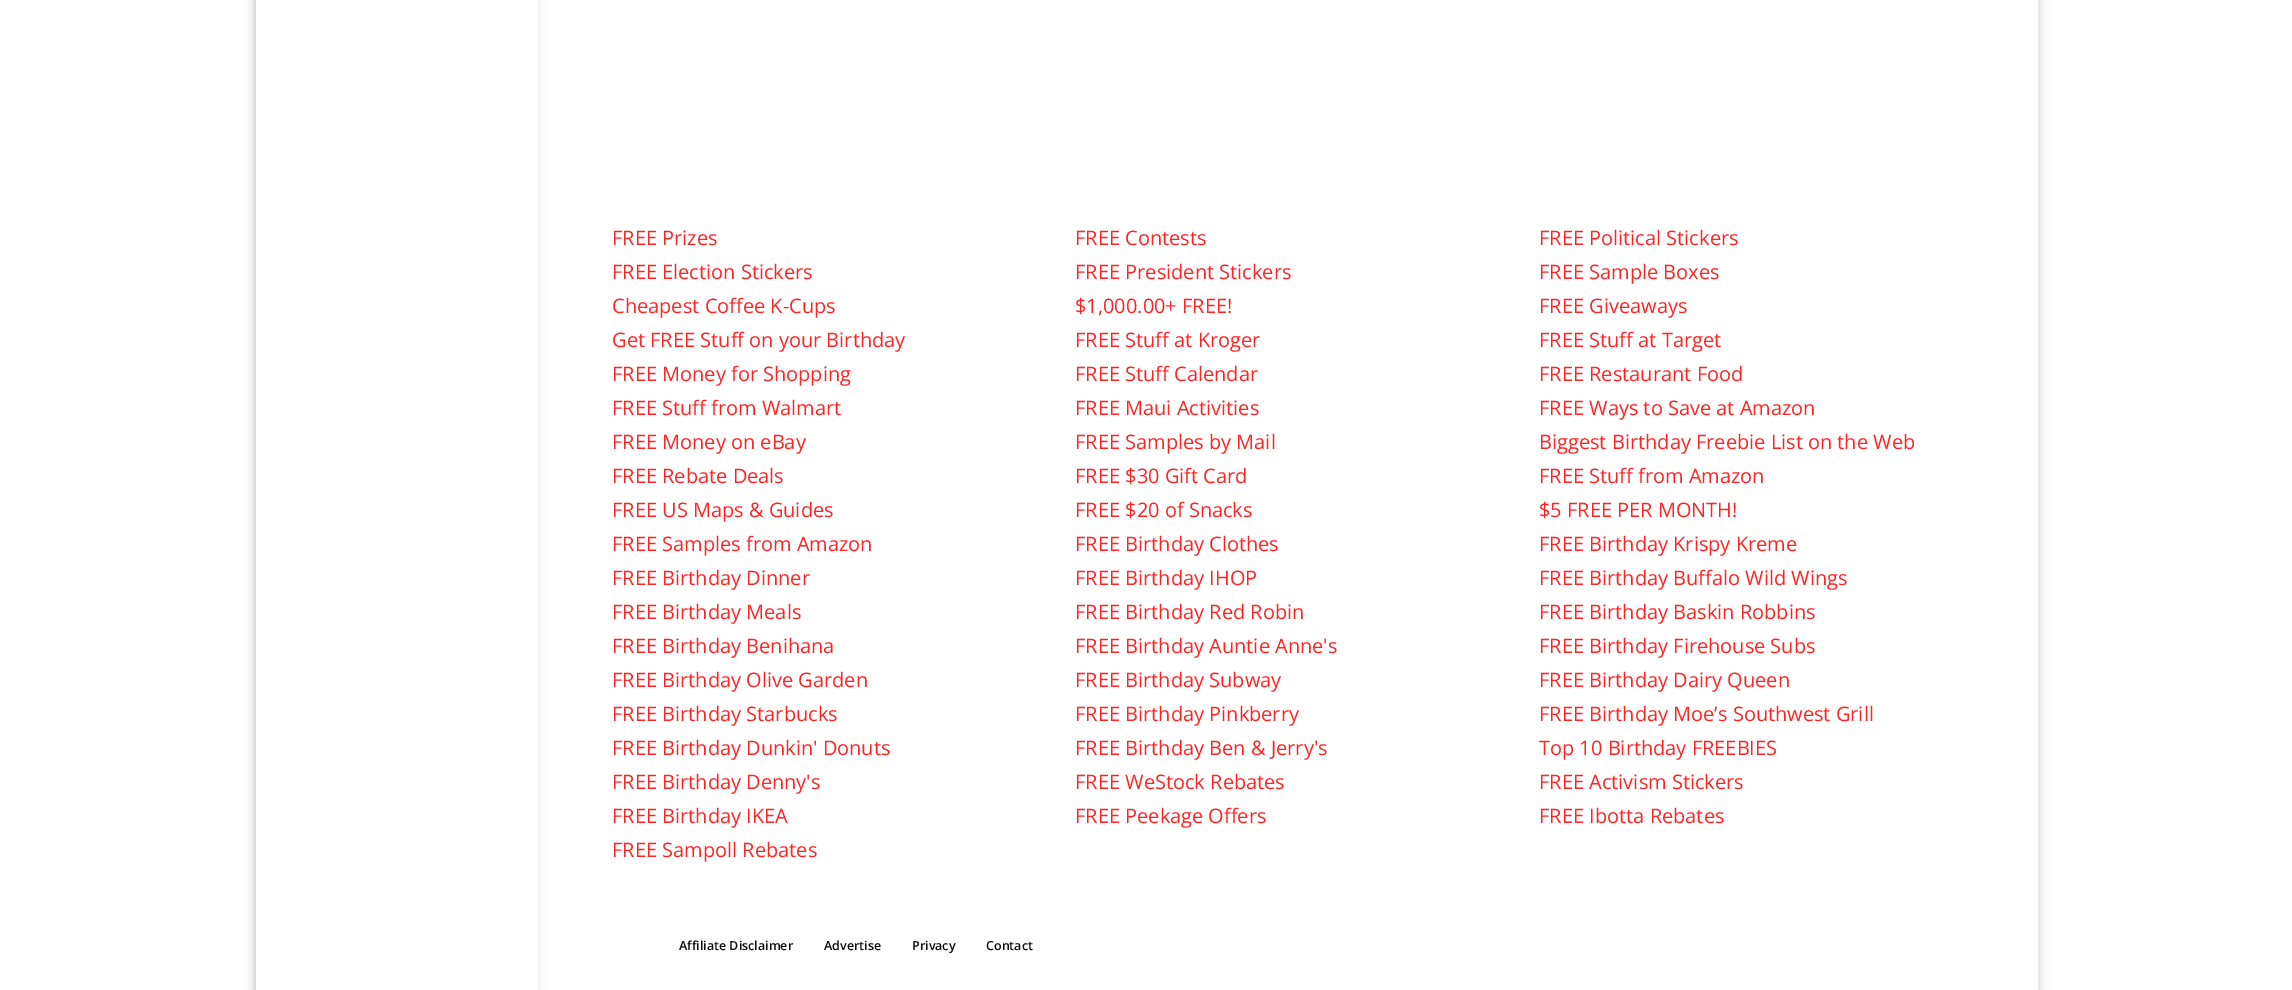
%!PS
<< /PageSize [2292 990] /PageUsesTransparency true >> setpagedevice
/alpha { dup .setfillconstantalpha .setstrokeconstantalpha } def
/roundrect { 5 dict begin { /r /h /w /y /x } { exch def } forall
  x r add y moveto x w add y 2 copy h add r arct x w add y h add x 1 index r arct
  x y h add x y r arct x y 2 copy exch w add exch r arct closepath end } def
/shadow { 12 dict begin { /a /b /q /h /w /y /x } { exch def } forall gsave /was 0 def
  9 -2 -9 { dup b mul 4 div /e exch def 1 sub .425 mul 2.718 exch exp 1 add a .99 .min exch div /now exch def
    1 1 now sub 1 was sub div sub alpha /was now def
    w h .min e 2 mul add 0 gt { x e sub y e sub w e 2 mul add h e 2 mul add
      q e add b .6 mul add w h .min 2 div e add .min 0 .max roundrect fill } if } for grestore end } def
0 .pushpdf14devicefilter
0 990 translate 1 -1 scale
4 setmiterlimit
1 setgray
0 0 2292 990 rectfill
0 setgray
256 -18 1782 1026 0 6 0.2 shadow
1 setgray
538 0 1500 990 rectfill
0 setgray
256 -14 282 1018 0 4.5 0.1 shadow
1 setgray
256 0 282 990 rectfill
/OpenSans-Regular [20 0 0 -20 0 0] selectfont
1 0.137 0.137 setrgbcolor
612 245 moveto (FREE Prizes) show
612 279 moveto (FREE Election Stickers) show
612 313 moveto (Cheapest Coffee K-Cups) show
612 347 moveto (Get FREE Stuff on your Birthday) show
612 381 moveto (FREE Money for Shopping) show
612 415 moveto (FREE Stuff from Walmart) show
612 449 moveto (FREE Money on eBay) show
612 483 moveto (FREE Rebate Deals) show
612 517 moveto (FREE US Maps & Guides) show
612 551 moveto (FREE Samples from Amazon) show
612 585 moveto (FREE Birthday Dinner) show
612 619 moveto (FREE Birthday Meals) show
612 653 moveto (FREE Birthday Benihana) show
612 687 moveto (FREE Birthday Olive Garden) show
612 721 moveto (FREE Birthday Starbucks) show
612 755 moveto (FREE Birthday Dunkin' Donuts) show
612 789 moveto (FREE Birthday Denny's) show
612 823 moveto (FREE Birthday IKEA) show
612 857 moveto (FREE Sampoll Rebates) show
1075 245 moveto (FREE Contests) show
1075 279 moveto (FREE President Stickers) show
1075 313 moveto ($1,000.00+ FREE!) show
1075 347 moveto (FREE Stuff at Kroger) show
1075 381 moveto (FREE Stuff Calendar) show
1075 415 moveto (FREE Maui Activities) show
1075 449 moveto (FREE Samples by Mail) show
1075 483 moveto (FREE $30 Gift Card) show
1075 517 moveto (FREE $20 of Snacks) show
1075 551 moveto (FREE Birthday Clothes) show
1075 585 moveto (FREE Birthday IHOP) show
1075 619 moveto (FREE Birthday Red Robin) show
1075 653 moveto (FREE Birthday Auntie Anne's) show
1075 687 moveto (FREE Birthday Subway) show
1075 721 moveto (FREE Birthday Pinkberry) show
1075 755 moveto (FREE Birthday Ben & Jerry's) show
1075 789 moveto (FREE WeStock Rebates) show
1075 823 moveto (FREE Peekage Offers) show
1539 245 moveto (FREE Political Stickers) show
1539 279 moveto (FREE Sample Boxes) show
1539 313 moveto (FREE Giveaways) show
1539 347 moveto (FREE Stuff at Target) show
1539 381 moveto (FREE Restaurant Food) show
1539 415 moveto (FREE Ways to Save at Amazon) show
1539 449 moveto (Biggest Birthday Freebie List on the Web) show
1539 483 moveto (FREE Stuff from Amazon) show
1539 517 moveto ($5 FREE PER MONTH!) show
1539 551 moveto (FREE Birthday Krispy Kreme) show
1539 585 moveto (FREE Birthday Buffalo Wild Wings) show
1539 619 moveto (FREE Birthday Baskin Robbins) show
1539 653 moveto (FREE Birthday Firehouse Subs) show
1539 687 moveto (FREE Birthday Dairy Queen) show
1539 721 moveto (FREE Birthday Moe’s Southwest Grill) show
1539 755 moveto (Top 10 Birthday FREEBIES) show
1539 789 moveto (FREE Activism Stickers) show
1539 823 moveto (FREE Ibotta Rebates) show
/OpenSans-SemiBold [12.5 0 0 -12.5 0 0] selectfont
0.039 setgray
679 950 moveto (Affiliate Disclaimer) show
824 950 moveto (Advertise) show
912 950 moveto (Privacy) show
986 950 moveto (Contact) show
.poppdf14devicefilter showpage
